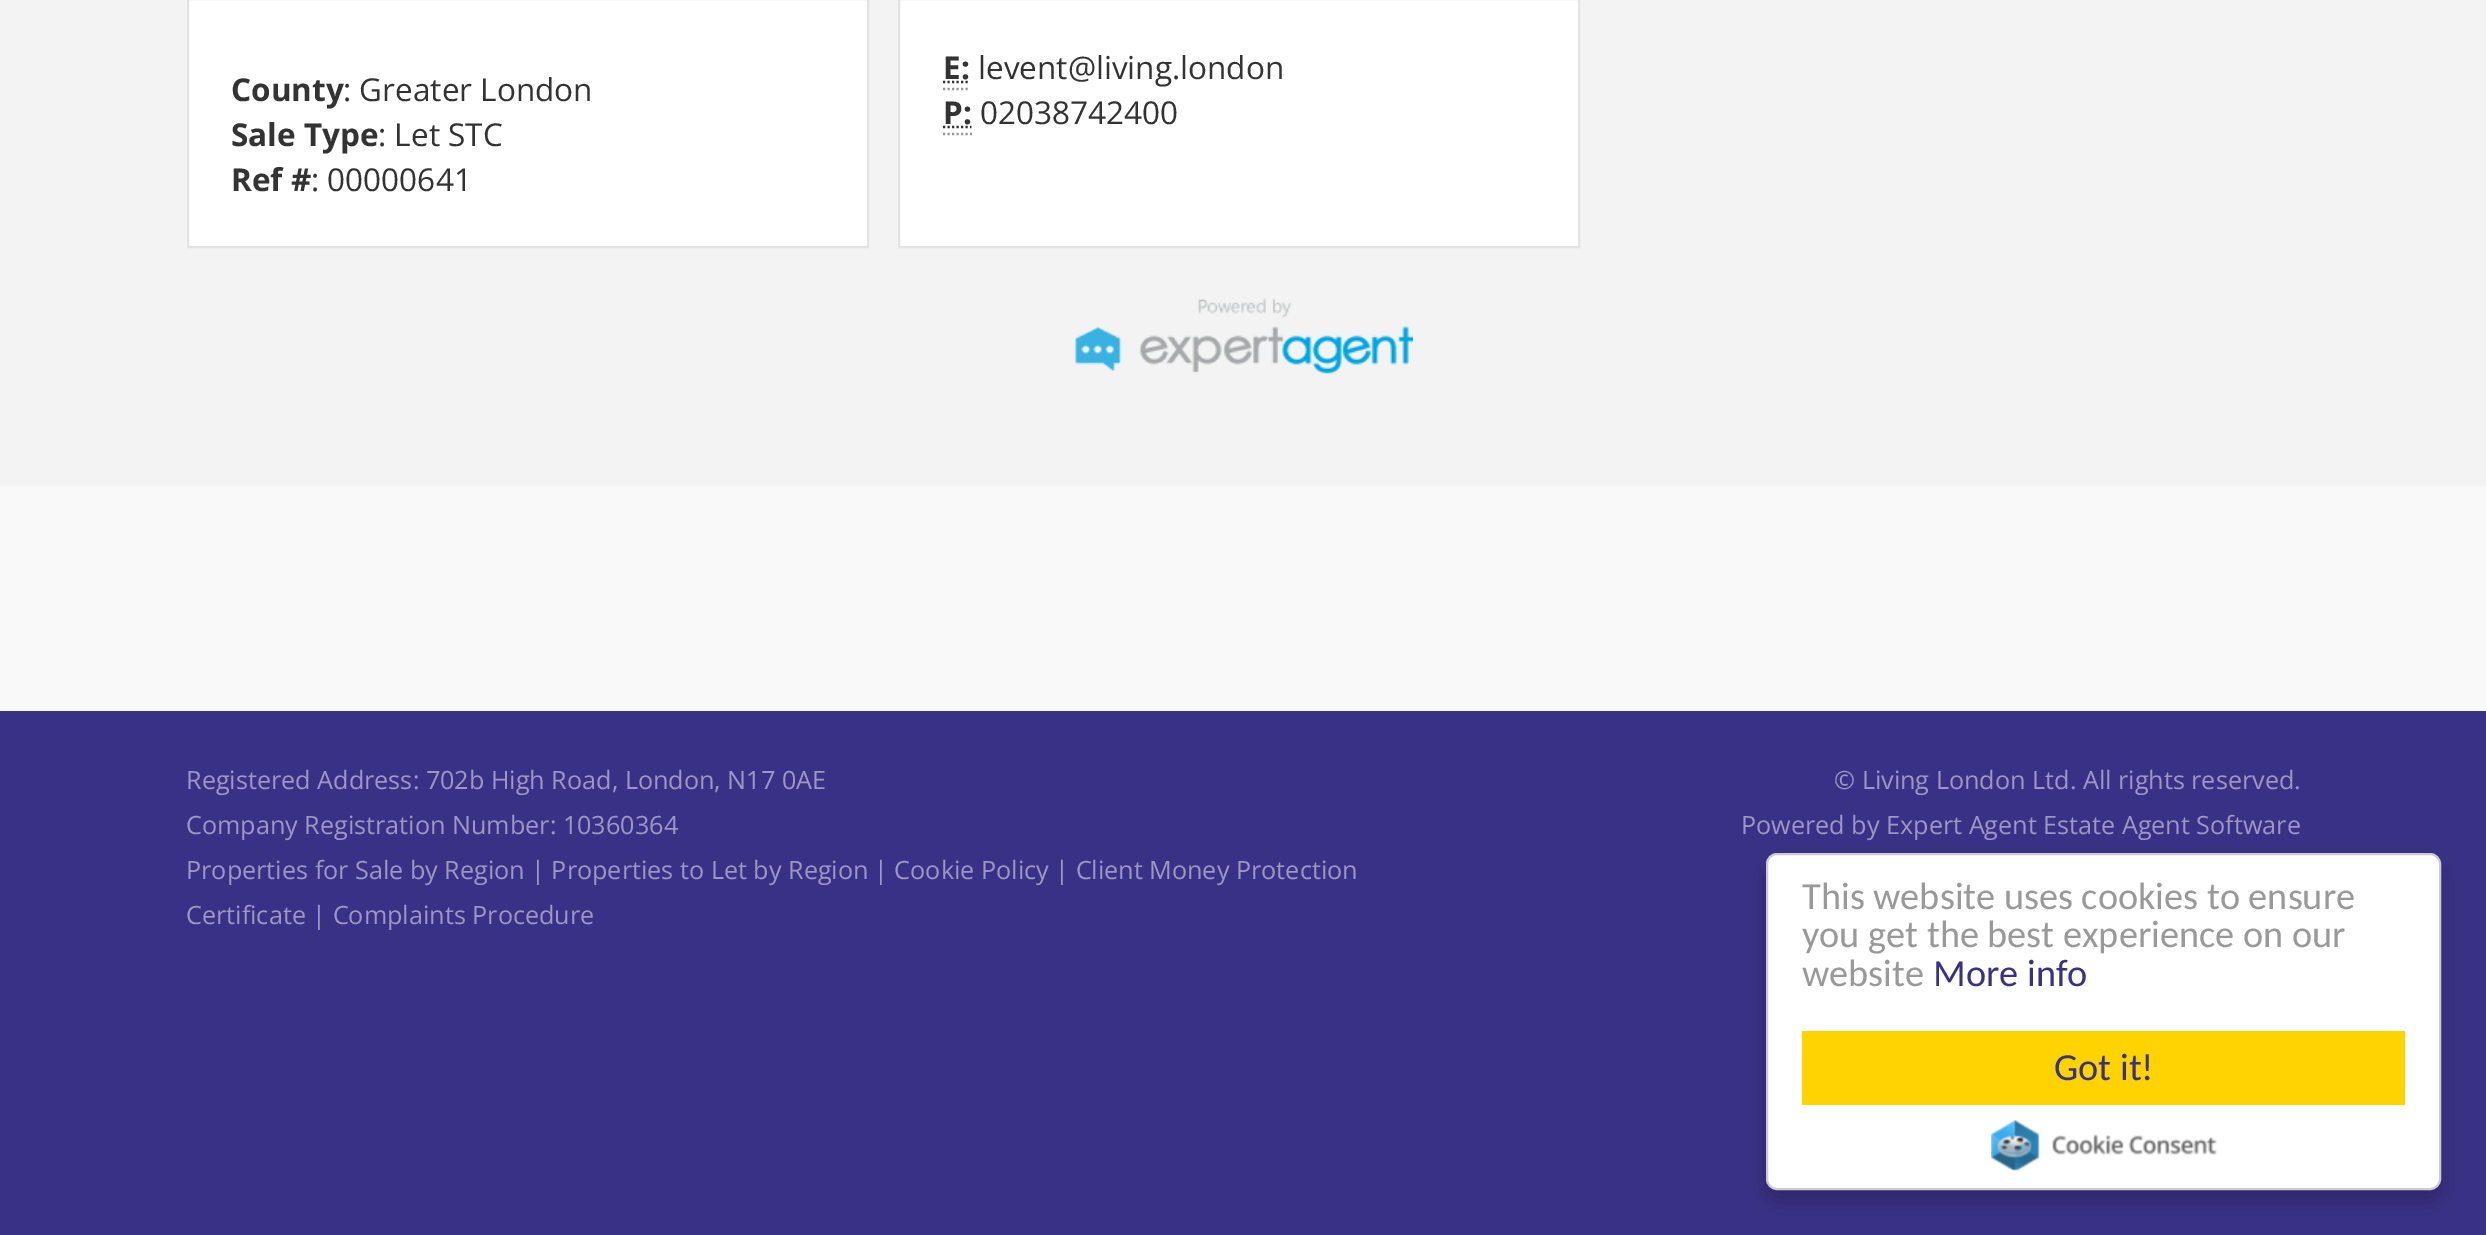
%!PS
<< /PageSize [2486 1235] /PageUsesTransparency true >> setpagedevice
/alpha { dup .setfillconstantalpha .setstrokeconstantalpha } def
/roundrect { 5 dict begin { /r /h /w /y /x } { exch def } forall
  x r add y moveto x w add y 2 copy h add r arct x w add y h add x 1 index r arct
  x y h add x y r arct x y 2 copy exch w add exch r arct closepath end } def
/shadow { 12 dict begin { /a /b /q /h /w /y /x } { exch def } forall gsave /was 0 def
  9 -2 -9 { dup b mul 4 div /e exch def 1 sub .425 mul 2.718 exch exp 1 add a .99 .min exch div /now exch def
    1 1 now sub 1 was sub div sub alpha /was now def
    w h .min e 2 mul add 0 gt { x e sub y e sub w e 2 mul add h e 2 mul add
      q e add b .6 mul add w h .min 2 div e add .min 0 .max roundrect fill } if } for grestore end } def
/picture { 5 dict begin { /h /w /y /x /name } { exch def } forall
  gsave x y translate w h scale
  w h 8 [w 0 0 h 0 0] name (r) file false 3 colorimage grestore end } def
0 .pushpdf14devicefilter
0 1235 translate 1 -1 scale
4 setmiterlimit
0.224 0.192 0.525 setrgbcolor
0 0 2486 1235 rectfill
0.953 setgray
0 0 2486 486 rectfill
1 setgray
newpath 188 -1 moveto 868 -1 lineto 868 247 lineto 188 247 lineto closepath gsave fill grestore
0.89 setgray
2 setlinewidth
stroke
/OpenSans-Bold [31.5 0 0 -31.5 0 0] selectfont
0.2 setgray
231 101 moveto (County) show
/OpenSans-Regular [31.5 0 0 -31.5 0 0] selectfont
343 101 moveto (: Greater London) show
/OpenSans-Bold [31.5 0 0 -31.5 0 0] selectfont
231 146 moveto (Sale Type) show
/OpenSans-Regular [31.5 0 0 -31.5 0 0] selectfont
378 146 moveto (: Let STC) show
/OpenSans-Bold [31.5 0 0 -31.5 0 0] selectfont
231 191 moveto (Ref #) show
/OpenSans-Regular [31.5 0 0 -31.5 0 0] selectfont
311 191 moveto (: 00000641) show
1 setgray
newpath 899 -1 moveto 1579 -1 lineto 1579 247 lineto 899 247 lineto closepath gsave fill grestore
0.89 setgray
stroke
/OpenSans-Bold [31.5 0 0 -31.5 0 0] selectfont
0.2 setgray
943 79 moveto (E:) show
0.6 setgray
2.2 setlinewidth
[2.25 2.25] 0 setdash
newpath 943 89 moveto 970 89 lineto stroke
0.2 setgray
newpath 943 82 moveto 969.5 82 lineto stroke
/OpenSans-Regular [31.5 0 0 -31.5 0 0] selectfont
978 79 moveto (levent@living.london) show
/OpenSans-Bold [31.5 0 0 -31.5 0 0] selectfont
943 124 moveto (P:) show
0.6 setgray
newpath 943 134 moveto 972 134 lineto stroke
0.2 setgray
newpath 943 127 moveto 971.5 127 lineto stroke
/OpenSans-Regular [31.5 0 0 -31.5 0 0] selectfont
980 124 moveto (02038742400) show
(img1.rgb) 1075 298 338 76 picture
0.976 setgray
0 486 2486 225 rectfill
/OpenSans-Regular [25.2 0 0 -25.2 0 0] selectfont
0.612 0.596 0.765 setrgbcolor
186 789 moveto (Registered Address: 702b High Road, London, N17 0AE) show
186 834 moveto (Company Registration Number: 10360364) show
186 879 moveto (Properties for Sale by Region) show
531 879 moveto (| Properties to Let by Region) show
874 879 moveto (| Cookie Policy | Client Money Protection) show
186 924 moveto (Certificate | Complaints Procedure) show
1834 789 moveto (© Living London Ltd. All rights reserved.) show
1741 834 moveto (Powered by Expert Agent) show
2043 834 moveto (Estate Agent Software) show
0 setgray
1766 864 675 338 11 11 0.2 shadow
1 setgray
1767 854 673 335 10 roundrect gsave fill grestore
0.8 setgray
2 setlinewidth
[] 0 setdash
stroke
/Carlito-Regular [38.25 0 0 -38.25 0 0] selectfont
0.6 setgray
1802 909 moveto (This website uses cookies to ensure) show
1802 947 moveto (you get the best experience on our) show
1802 986 moveto (website) show
0.224 0.192 0.525 setrgbcolor
1933 986 moveto (More info) show
1 0.827 0 setrgbcolor
1802 1031 603 74 rectfill
0.224 0.192 0.525 setrgbcolor
2054 1080 moveto (Got it!) show
(img2.rgb) 1991 1120 226 51 picture
.poppdf14devicefilter showpage
